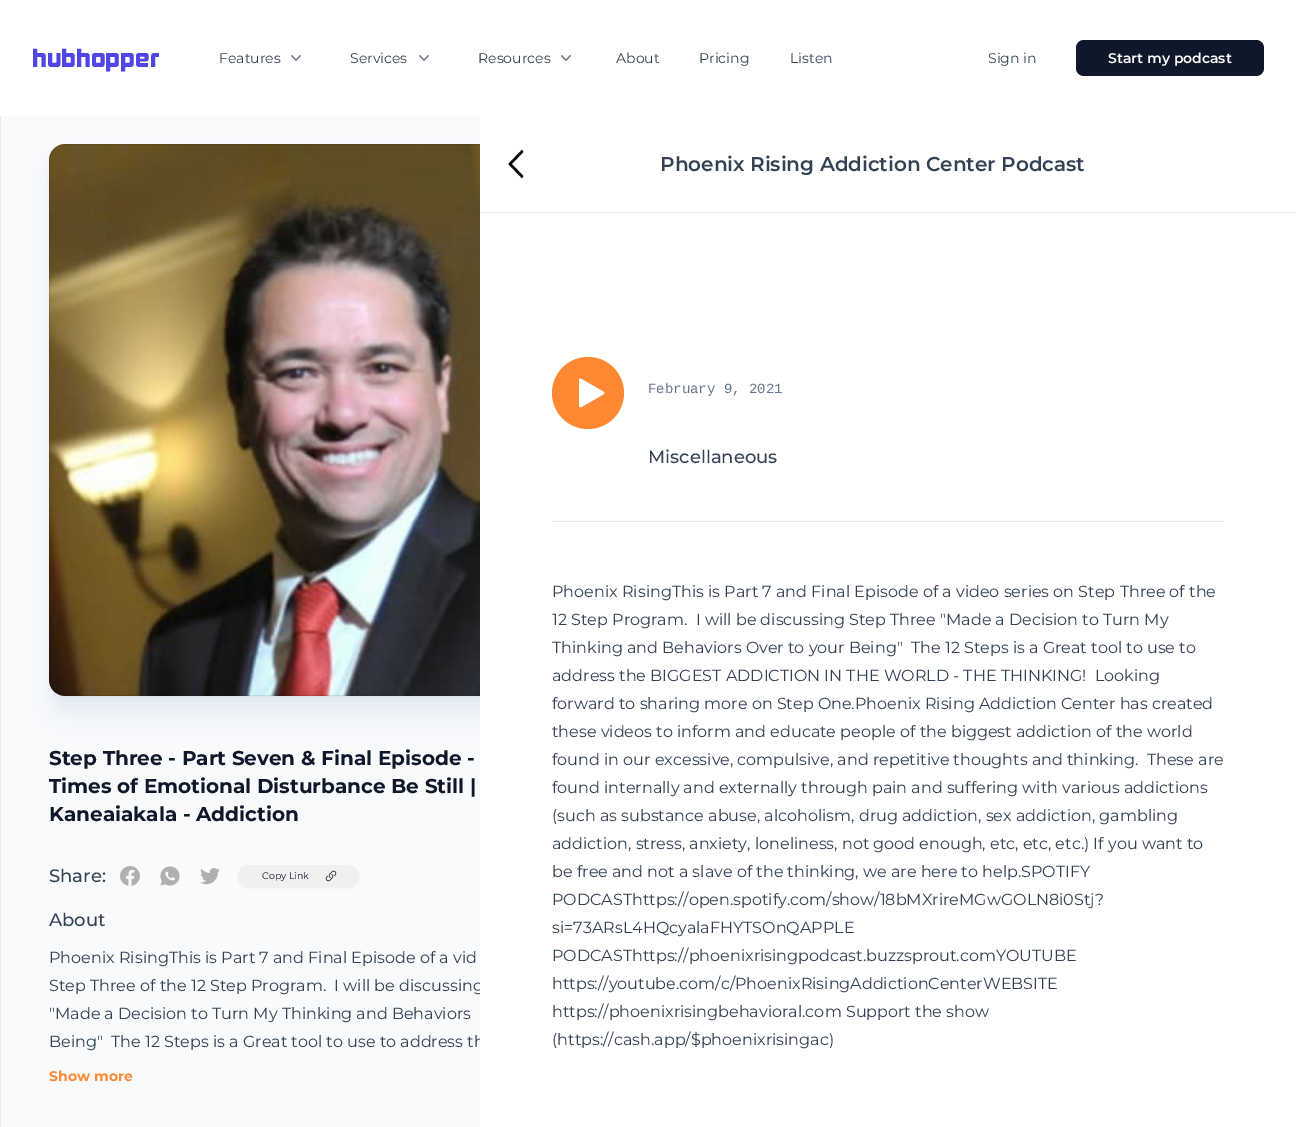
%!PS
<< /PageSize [1296 1127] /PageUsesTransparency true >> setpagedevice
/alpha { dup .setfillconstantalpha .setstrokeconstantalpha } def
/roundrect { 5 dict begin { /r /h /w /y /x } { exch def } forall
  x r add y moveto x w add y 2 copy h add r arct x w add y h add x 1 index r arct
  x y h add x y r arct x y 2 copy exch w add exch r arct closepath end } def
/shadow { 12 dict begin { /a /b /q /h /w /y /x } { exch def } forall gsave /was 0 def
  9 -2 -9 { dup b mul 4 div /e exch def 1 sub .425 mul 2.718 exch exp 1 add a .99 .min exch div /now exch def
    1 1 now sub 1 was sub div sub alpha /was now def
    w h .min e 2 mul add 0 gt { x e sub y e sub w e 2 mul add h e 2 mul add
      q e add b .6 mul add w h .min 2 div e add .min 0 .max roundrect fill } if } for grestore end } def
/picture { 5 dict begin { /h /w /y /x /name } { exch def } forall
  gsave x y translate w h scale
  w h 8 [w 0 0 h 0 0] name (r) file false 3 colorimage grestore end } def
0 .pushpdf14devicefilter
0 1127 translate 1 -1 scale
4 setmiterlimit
1 setgray
0 0 1296 1127 rectfill
/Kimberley-Black [24 0 0 -24 0 0] selectfont
0.31 0.275 0.898 setrgbcolor
32 67 moveto (hubhopper) show
/Montserrat-Regular [14 0 0 -14 0 0] selectfont
0.2 0.255 0.333 setrgbcolor
219 63 moveto (Features) show
(img1.rgb) 291 55 10 6 picture
350 63 moveto (Services) show
(img1.rgb) 419 55 10 6 picture
478 63 moveto (Resources) show
(img1.rgb) 561 55 10 6 picture
616 63 moveto (About) show
699 63 moveto (Pricing) show
790 63 moveto (Listen) show
988 63 moveto (Sign in) show
0.059 0.09 0.165 setrgbcolor
1076 40 188 36 8 roundrect fill
/Montserrat-SemiBold [14 0 0 -14 0 0] selectfont
1 setgray
1108 63 moveto (Start my podcast) show
0.973 0.98 0.988 setrgbcolor
1 116 479 1011 rectfill
0.886 0.91 0.941 setrgbcolor
0 116 1 1011 rectfill
gsave
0 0 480 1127 rectclip
55 158 540 540 10 5 1 shadow
54 169 542 542 11 12.5 1 shadow
grestore
newpath 65 144 moveto 480 144 lineto 480 696 lineto 65 696 lineto 56 696 49 689 49 680 curveto 49 160 lineto 49 151 56 144 65 144 curveto closepath fill
(img2.rgb) 49 144 431 552 picture
gsave
0 0 480 1127 rectclip
0.1 alpha
0 setgray
49.5 144.5 551 551 15.5 roundrect stroke
grestore
/Montserrat-Bold [20 0 0 -20 0 0] selectfont
0.059 0.09 0.165 setrgbcolor
49 765 moveto (Step Three - Part Seven & Final Episode -) show
49 793 moveto (Times of Emotional Disturbance Be Still |) show
49 821 moveto (Kaneaiakala - Addiction) show
/Montserrat-Medium [18 0 0 -18 0 0] selectfont
0.2 0.255 0.333 setrgbcolor
49 882 moveto (Share:) show
(img3.rgb) 120 866 20 20 picture
(img4.rgb) 160 866 20 20 picture
(img5.rgb) 200 868 20 17 picture
0 setgray
238 866 121 22 11 1 0.05 shadow
0.941 setgray
238 865 121 22 11 roundrect fill
/Montserrat-Regular [9.5 0 0 -9.5 0 0] selectfont
0.059 0.09 0.165 setrgbcolor
262 879 moveto (Copy Link) show
(img6.rgb) 325 870 12 12 picture
/Montserrat-Medium [18 0 0 -18 0 0] selectfont
0.2 0.255 0.333 setrgbcolor
49 926 moveto (About) show
/Montserrat-Regular [16 0 0 -16 0 0] selectfont
49 963 moveto (Phoenix RisingThis is Part 7 and Final Episode of a vid) show
gsave
49 944 431 112 rectclip
49 991 moveto (Step Three of the 12 Step Program.  I will be discussing) show
grestore
49 1019 moveto ("Made a Decision to Turn My Thinking and Behaviors) show
gsave
49 944 431 112 rectclip
49 1047 moveto (Being"  The 12 Steps is a Great tool to use to address th) show
grestore
/Montserrat-Bold [14 0 0 -14 0 0] selectfont
1 0.537 0.2 setrgbcolor
49 1081 moveto (Show more) show
0.898 0.906 0.922 setrgbcolor
480 212 816 1 rectfill
0 setgray
2.5 setlinewidth
1 setlinecap
1 setlinejoin
newpath 522 176.5 moveto 510 164 lineto 522 151.5 lineto stroke
/Montserrat-SemiBold [20 0 0 -20 0 0] selectfont
0.2 0.255 0.333 setrgbcolor
660 171 moveto (Phoenix Rising Addiction Center Podcast) show
1 0.537 0.2 setrgbcolor
newpath 588 393 36 0 360 arc closepath fill
(img7.rgb) 579 378 26 30 picture
/LiberationMono-Regular [14 0 0 -14 0 0] selectfont
0.392 0.455 0.545 setrgbcolor
648 393 moveto (February 9, 2021) show
/Montserrat-Medium [18 0 0 -18 0 0] selectfont
0.2 0.255 0.333 setrgbcolor
648 463 moveto (Miscellaneous) show
0.898 0.906 0.922 setrgbcolor
552 521 672 1 rectfill
/Montserrat-Regular [16 0 0 -16 0 0] selectfont
0.2 0.255 0.333 setrgbcolor
552 597 moveto (Phoenix RisingThis is Part 7 and Final Episode of a video series on Step Three of the) show
552 625 moveto (12 Step Program.  I will be discussing Step Three "Made a Decision to Turn My) show
552 653 moveto (Thinking and Behaviors Over to your Being"  The 12 Steps is a Great tool to use to) show
552 681 moveto (address the BIGGEST ADDICTION IN THE WORLD - THE THINKING!  Looking) show
552 709 moveto (forward to sharing more on Step One.Phoenix Rising Addiction Center has created) show
552 737 moveto (these videos to inform and educate people of the biggest addiction of the world) show
552 765 moveto (found in our excessive, compulsive, and repetitive thoughts and thinking.  These are) show
552 793 moveto (found internally and externally through pain and suffering with various addictions) show
552 821 moveto (\(such as substance abuse, alcoholism, drug addiction, sex addiction, gambling) show
552 849 moveto (addiction, stress, anxiety, loneliness, not good enough, etc, etc, etc.\) If you want to) show
552 877 moveto (be free and not a slave of the thinking, we are here to help.SPOTIFY) show
552 905 moveto (PODCASThttps://open.spotify.com/show/18bMXrireMGwGOLN8i0Stj?) show
552 933 moveto (si=73ARsL4HQcyalaFHYTSOnQAPPLE) show
552 961 moveto (PODCASThttps://phoenixrisingpodcast.buzzsprout.comYOUTUBE) show
552 989 moveto (https://youtube.com/c/PhoenixRisingAddictionCenterWEBSITE) show
552 1017 moveto (https://phoenixrisingbehavioral.com Support the show) show
552 1045 moveto (\(https://cash.app/$phoenixrisingac\)) show
.poppdf14devicefilter showpage
